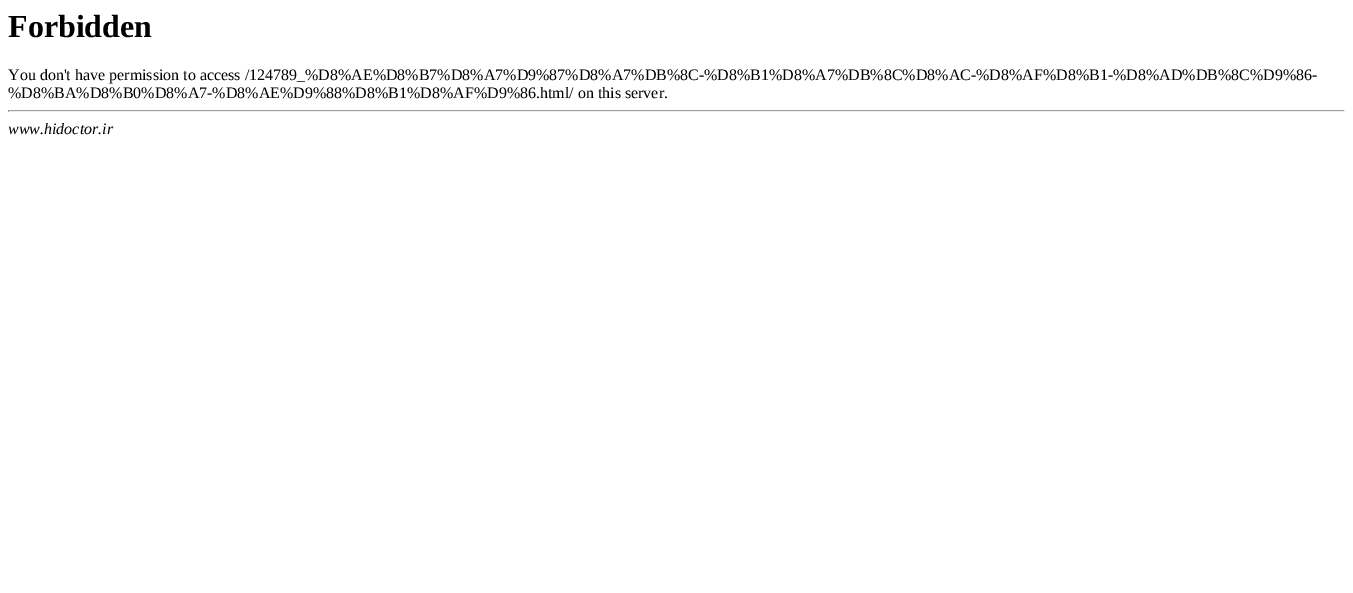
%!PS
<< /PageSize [1353 593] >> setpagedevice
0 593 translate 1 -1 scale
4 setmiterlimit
1 setgray
0 0 1353 593 rectfill
/LiberationSerif-Bold [32 0 0 -32 0 0] selectfont
0 setgray
8 37 moveto (Forbidden) show
/LiberationSerif-Regular [16 0 0 -16 0 0] selectfont
8 80 moveto (You don't have permission to access /124789_%D8%AE%D8%B7%D8%A7%D9%87%D8%A7%DB%8C-%D8%B1%D8%A7%DB%8C%D8%AC-%D8%AF%D8%B1-%D8%AD%DB%8C%D9%86-) show
8 98 moveto (%D8%BA%D8%B0%D8%A7-%D8%AE%D9%88%D8%B1%D8%AF%D9%86.html/ on this server.) show
0.624 setgray
8 110 1337 1 rectfill
0.933 setgray
1344 110 1 2 rectfill
8 111 1337 1 rectfill
0.624 setgray
8 110 1 2 rectfill
/LiberationSerif-Italic [16 0 0 -16 0 0] selectfont
0 setgray
8 134 moveto (www.hidoctor.ir) show
showpage
